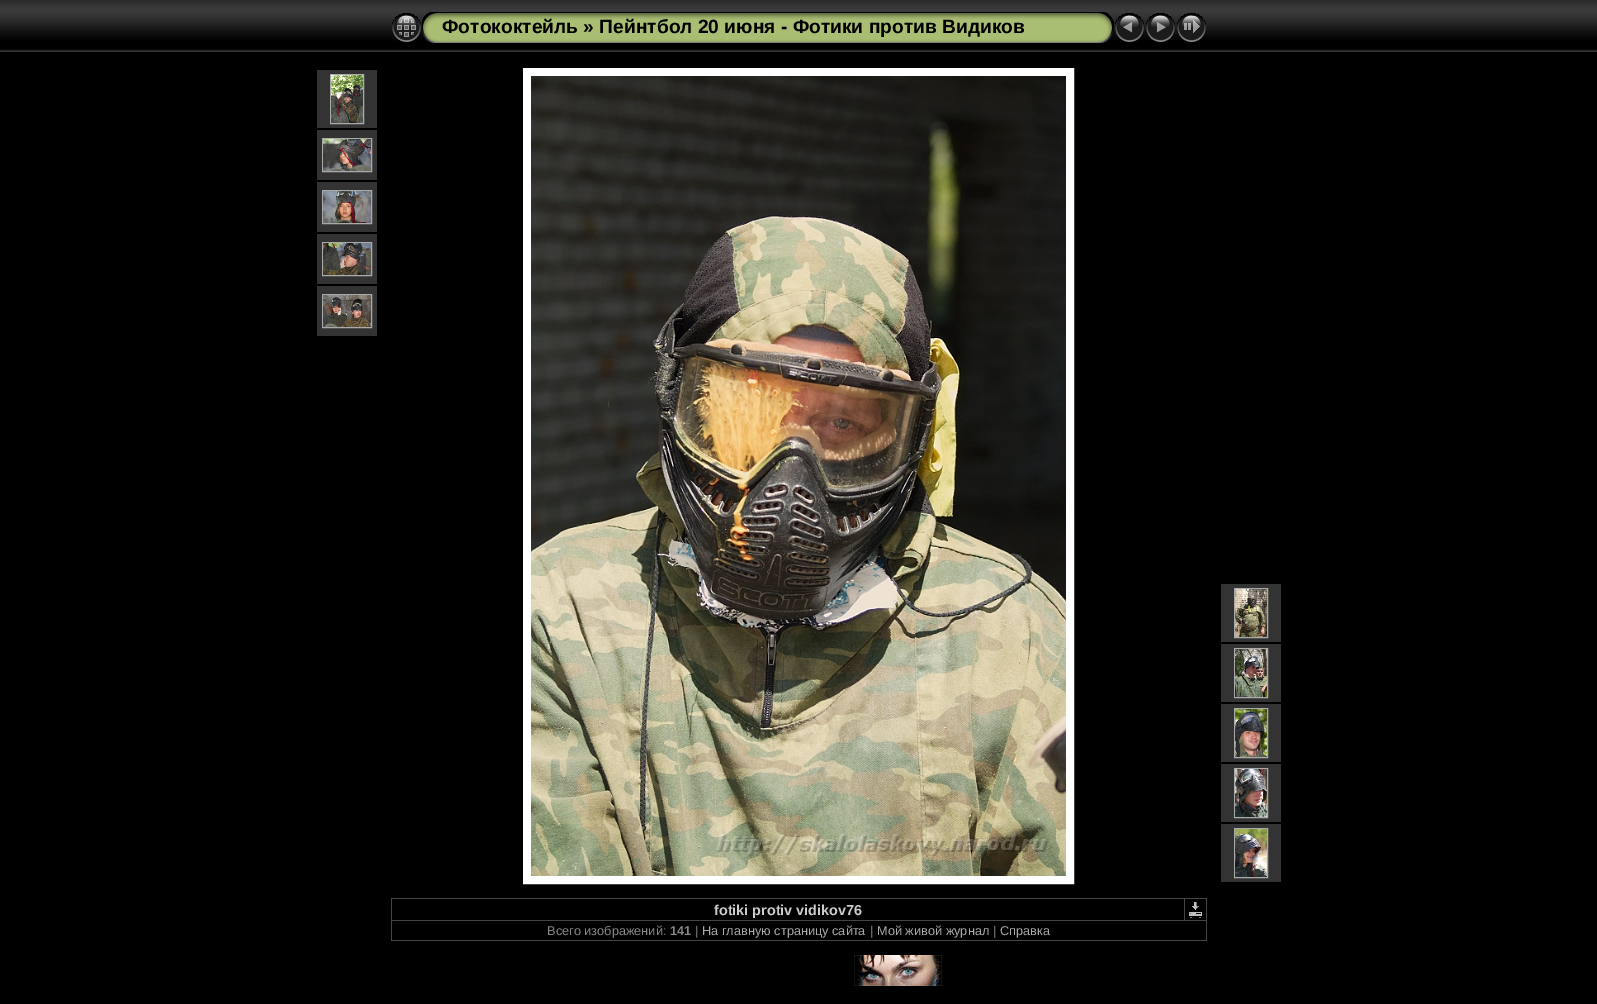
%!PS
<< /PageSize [1597 1004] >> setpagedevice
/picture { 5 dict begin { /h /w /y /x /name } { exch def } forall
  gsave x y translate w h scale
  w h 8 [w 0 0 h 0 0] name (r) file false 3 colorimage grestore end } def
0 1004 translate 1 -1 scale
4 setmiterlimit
0 setgray
0 0 1597 1004 rectfill
(img1.rgb) 0 0 1597 52 picture
(img2.rgb) 392 13 29 29 picture
(img3.rgb) 422 12 20 31 picture
(img4.rgb) 442 12 652 31 picture
/LiberationSans-Bold [19.2 0 0 -19.2 0 0] selectfont
442 33 moveto (Фотококтейль » Пейнтбол 20 июня - Фотики против Видиков) show
(img5.rgb) 1094 12 20 31 picture
(img6.rgb) 1115 13 29 29 picture
(img7.rgb) 1146 13 29 29 picture
(img8.rgb) 1177 13 29 29 picture
0.2 setgray
317 70 60 58 rectfill
0.667 setgray
330.5 74.5 33 49 rectstroke
(img9.rgb) 331 75 32 48 picture
0.2 setgray
317 130 60 50 rectfill
0.667 setgray
322.5 138.5 49 33 rectstroke
(img10.rgb) 323 139 48 32 picture
0.2 setgray
317 182 60 50 rectfill
0.667 setgray
322.5 190.5 49 33 rectstroke
(img11.rgb) 323 191 48 32 picture
0.2 setgray
317 234 60 50 rectfill
0.667 setgray
322.5 242.5 49 33 rectstroke
(img12.rgb) 323 243 48 32 picture
0.2 setgray
317 286 60 50 rectfill
0.667 setgray
322.5 294.5 49 33 rectstroke
(img13.rgb) 323 295 48 32 picture
1 setgray
8 setlinewidth
527 72 543 808 rectstroke
(img14.rgb) 531 76 535 800 picture
0.2 setgray
1221 584 60 58 rectfill
0.667 setgray
1 setlinewidth
1234.5 588.5 33 49 rectstroke
(img15.rgb) 1235 589 32 48 picture
0.2 setgray
1221 644 60 58 rectfill
0.667 setgray
1234.5 648.5 33 49 rectstroke
(img16.rgb) 1235 649 32 48 picture
0.2 setgray
1221 704 60 58 rectfill
0.667 setgray
1234.5 708.5 33 49 rectstroke
(img17.rgb) 1235 709 32 48 picture
0.2 setgray
1221 764 60 58 rectfill
0.667 setgray
1234.5 768.5 33 49 rectstroke
(img18.rgb) 1235 769 32 48 picture
0.2 setgray
1221 824 60 58 rectfill
0.667 setgray
1234.5 828.5 33 49 rectstroke
(img19.rgb) 1235 829 32 48 picture
0.267 setgray
391 898 816 1 rectfill
1206 898 1 43 rectfill
391 940 816 1 rectfill
391 898 1 43 rectfill
/LiberationSans-Bold [14.4 0 0 -14.4 0 0] selectfont
0.8 setgray
714 915 moveto (fotiki protiv vidikov76) show
0.267 setgray
391 920 816 1 rectfill
1184 898 1 23 rectfill
(img20.rgb) 1189 902 13 16 picture
/LiberationSans-Regular [12.75 0 0 -12.75 0 0] selectfont
0.533 setgray
547 935 moveto (Всего изображений:) show
/LiberationSans-Bold [12.75 0 0 -12.75 0 0] selectfont
670 935 moveto (141) show
/LiberationSans-Regular [12.75 0 0 -12.75 0 0] selectfont
695 935 moveto (|) show
0.667 setgray
702 935 moveto (На главную страницу сайта) show
0.533 setgray
870 935 moveto (|) show
0.667 setgray
877 935 moveto (Мой живой журнал) show
0.533 setgray
993 935 moveto (|) show
0.667 setgray
1000 935 moveto (Справка) show
(img21.rgb) 854 955 88 31 picture
showpage
